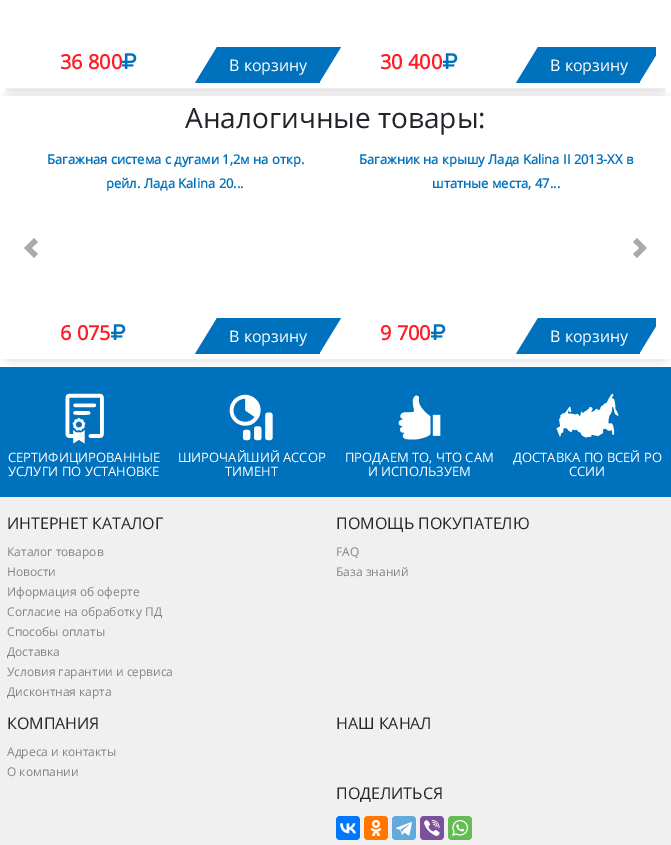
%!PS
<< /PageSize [671 845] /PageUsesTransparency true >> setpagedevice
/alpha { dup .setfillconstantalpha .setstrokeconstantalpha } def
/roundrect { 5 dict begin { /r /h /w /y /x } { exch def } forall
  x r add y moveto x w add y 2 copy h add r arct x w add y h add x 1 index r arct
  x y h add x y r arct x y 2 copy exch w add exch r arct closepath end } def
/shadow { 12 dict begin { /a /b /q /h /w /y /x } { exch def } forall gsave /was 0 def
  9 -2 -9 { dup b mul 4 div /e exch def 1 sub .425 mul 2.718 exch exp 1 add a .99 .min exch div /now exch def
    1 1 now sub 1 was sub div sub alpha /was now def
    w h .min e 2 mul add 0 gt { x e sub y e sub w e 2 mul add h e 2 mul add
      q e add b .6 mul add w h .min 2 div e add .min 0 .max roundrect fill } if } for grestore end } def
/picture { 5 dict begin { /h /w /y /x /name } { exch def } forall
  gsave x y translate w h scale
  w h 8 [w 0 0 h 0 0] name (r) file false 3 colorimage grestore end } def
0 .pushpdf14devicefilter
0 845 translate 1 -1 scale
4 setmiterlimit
1 setgray
0 0 671 845 rectfill
gsave
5 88 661 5 rectclip
0 setgray
10 -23 651 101 0 7.5 1 shadow
grestore
/OpenSans-Bold [20 0 0 -20 0 0] selectfont
1 0.114 0.145 setrgbcolor
60 69 moveto (36 800) show
(img1.rgb) 122 53 15 16 picture
gsave
newpath 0 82 moveto 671 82 lineto 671 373 lineto 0 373 lineto closepath 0 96 moveto 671 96 lineto 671 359 lineto 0 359 lineto closepath eoclip newpath
0 setgray
10 106 651 243 0 7.5 1 shadow
grestore
0 0.443 0.737 setrgbcolor
newpath 217 47 moveto 217 83 lineto 195 83 lineto closepath fill
217 47 103 36 rectfill
/OpenSans-Regular [16 0 0 -16 0 0] selectfont
1 setgray
229 71 moveto (В корзину) show
0 0.443 0.737 setrgbcolor
newpath 319 83 moveto 319 47 lineto 341 47 lineto closepath fill
/OpenSans-Bold [20 0 0 -20 0 0] selectfont
1 0.114 0.145 setrgbcolor
380 69 moveto (30 400) show
(img1.rgb) 443 53 15 16 picture
0 0.443 0.737 setrgbcolor
newpath 538 47 moveto 538 83 lineto 516 83 lineto closepath fill
538 47 102 36 rectfill
/OpenSans-Regular [16 0 0 -16 0 0] selectfont
1 setgray
550 71 moveto (В корзину) show
gsave
15 0 641 83 rectclip
0 0.443 0.737 setrgbcolor
newpath 639 83 moveto 639 47 lineto 661 47 lineto closepath fill
grestore
/OpenSans-Regular [28 0 0 -28 0 0] selectfont
0.129 0.145 0.161 setrgbcolor
185 128 moveto (Аналогичные товары:) show
0.667 setgray
newpath 34 238 moveto 24 248 lineto 34 258 lineto 38 254 lineto 31.5 248 lineto 38 242 lineto closepath fill
/OpenSans-Bold [13 0 0 -13 0 0] selectfont
0 0.443 0.737 setrgbcolor
47 164 moveto (Багажная система с дугами 1,2м на откр.) show
106 188 moveto (рейл. Лада Kalina 20...) show
/OpenSans-Bold [20 0 0 -20 0 0] selectfont
1 0.114 0.145 setrgbcolor
60 340 moveto (6 075) show
(img1.rgb) 111 324 15 16 picture
0 0.443 0.737 setrgbcolor
newpath 217 318 moveto 217 354 lineto 195 354 lineto closepath fill
217 318 103 36 rectfill
/OpenSans-Regular [16 0 0 -16 0 0] selectfont
1 setgray
229 342 moveto (В корзину) show
0 0.443 0.737 setrgbcolor
newpath 319 354 moveto 319 318 lineto 341 318 lineto closepath fill
/OpenSans-Bold [13 0 0 -13 0 0] selectfont
359 164 moveto (Багажник на крышу Лада Kalina II 2013-XX в) show
432 188 moveto (штатные места, 47...) show
/OpenSans-Bold [20 0 0 -20 0 0] selectfont
1 0.114 0.145 setrgbcolor
380 340 moveto (9 700) show
(img1.rgb) 431 324 15 16 picture
0 0.443 0.737 setrgbcolor
newpath 538 318 moveto 538 354 lineto 516 354 lineto closepath fill
538 318 102 36 rectfill
/OpenSans-Regular [16 0 0 -16 0 0] selectfont
1 setgray
550 342 moveto (В корзину) show
gsave
15 142 641 212 rectclip
0 0.443 0.737 setrgbcolor
newpath 639 354 moveto 639 318 lineto 661 318 lineto closepath fill
grestore
0.667 setgray
newpath 637 238 moveto 633 242 lineto 639.5 248 lineto 633 254 lineto 637 258 lineto 647 248 lineto closepath fill
0.941 setgray
0 497 671 348 rectfill
0 0.443 0.737 setrgbcolor
0 367 671 130 rectfill
(img2.rgb) 65 393 39 51 picture
/OpenSans-Regular [13 0 0 -13 0 0] selectfont
1 setgray
8 462 moveto (СЕРТИФИЦИРОВАННЫЕ) show
8 476 moveto (УСЛУГИ ПО УСТАНОВКЕ) show
(img3.rgb) 229 394 44 47 picture
178 462 moveto (ШИРОЧАЙШИЙ АССОР) show
225 476 moveto (ТИМЕНТ) show
(img4.rgb) 398 395 43 45 picture
345 462 moveto (ПРОДАЕМ ТО, ЧТО САМ) show
368 476 moveto (И ИСПОЛЬЗУЕМ) show
(img5.rgb) 556 393 63 45 picture
513 462 moveto (ДОСТАВКА ПО ВСЕЙ РО) show
569 476 moveto (ССИИ) show
/OpenSans-Regular [16 0 0 -16 0 0] selectfont
0.153 setgray
7 529 moveto (ИНТЕРНЕТ КАТАЛОГ) show
/OpenSans-Regular [12 0 0 -12 0 0] selectfont
0.518 setgray
7 556 moveto (Каталог товаров) show
7 576 moveto (Новости) show
7 596 moveto (Иформация об оферте) show
7 616 moveto (Согласие на обработку ПД) show
7 636 moveto (Способы оплаты) show
7 656 moveto (Доставка) show
7 676 moveto (Условия гарантии и сервиса) show
7 696 moveto (Дисконтная карта) show
/OpenSans-Regular [16 0 0 -16 0 0] selectfont
0.153 setgray
336 529 moveto (ПОМОЩЬ ПОКУПАТЕЛЮ) show
/OpenSans-Regular [12 0 0 -12 0 0] selectfont
0.518 setgray
336 556 moveto (FAQ) show
336 576 moveto (База знаний) show
/OpenSans-Regular [16 0 0 -16 0 0] selectfont
0.153 setgray
7 729 moveto (КОМПАНИЯ) show
/OpenSans-Regular [12 0 0 -12 0 0] selectfont
0.518 setgray
7 756 moveto (Адреса и контакты) show
7 776 moveto (О компании) show
/OpenSans-Regular [16 0 0 -16 0 0] selectfont
0.153 setgray
336 729 moveto (НАШ КАНАЛ) show
336 799 moveto (ПОДЕЛИТЬСЯ) show
0 0.467 1 setrgbcolor
336 816 24 24 4 roundrect fill
(img6.rgb) 340 823 16 11 picture
1 0.467 0 setrgbcolor
364 816 24 24 4 roundrect fill
(img7.rgb) 370 820 12 16 picture
0.392 0.663 0.863 setrgbcolor
392 816 24 24 4 roundrect fill
(img8.rgb) 396 822 16 14 picture
0.482 0.318 0.616 setrgbcolor
420 816 24 24 4 roundrect fill
(img9.rgb) 424 820 16 16 picture
0.396 0.737 0.329 setrgbcolor
448 816 24 24 4 roundrect fill
(img10.rgb) 452 820 16 16 picture
.poppdf14devicefilter showpage
